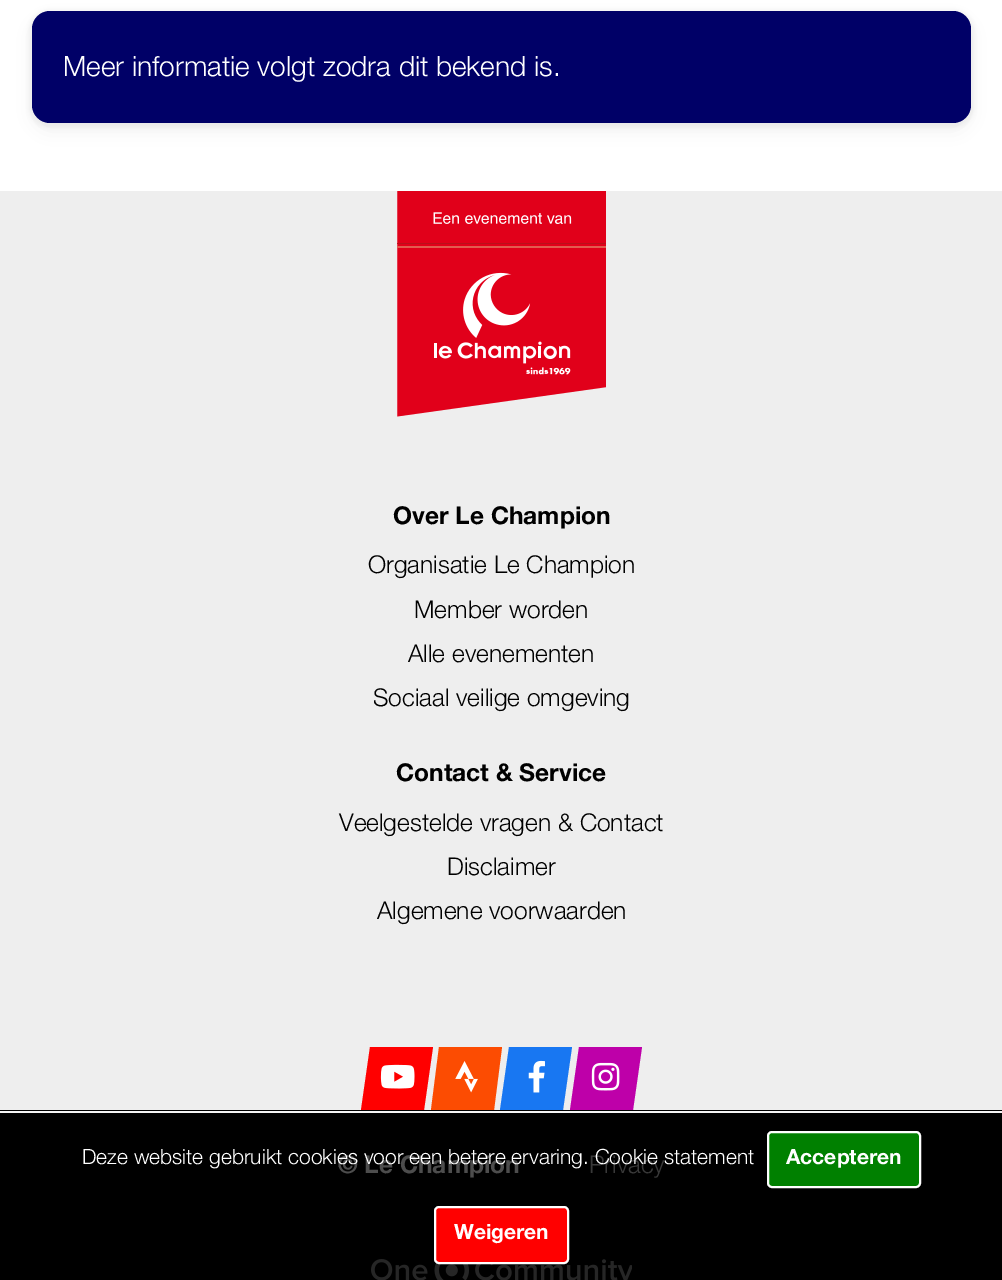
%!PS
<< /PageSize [1002 1280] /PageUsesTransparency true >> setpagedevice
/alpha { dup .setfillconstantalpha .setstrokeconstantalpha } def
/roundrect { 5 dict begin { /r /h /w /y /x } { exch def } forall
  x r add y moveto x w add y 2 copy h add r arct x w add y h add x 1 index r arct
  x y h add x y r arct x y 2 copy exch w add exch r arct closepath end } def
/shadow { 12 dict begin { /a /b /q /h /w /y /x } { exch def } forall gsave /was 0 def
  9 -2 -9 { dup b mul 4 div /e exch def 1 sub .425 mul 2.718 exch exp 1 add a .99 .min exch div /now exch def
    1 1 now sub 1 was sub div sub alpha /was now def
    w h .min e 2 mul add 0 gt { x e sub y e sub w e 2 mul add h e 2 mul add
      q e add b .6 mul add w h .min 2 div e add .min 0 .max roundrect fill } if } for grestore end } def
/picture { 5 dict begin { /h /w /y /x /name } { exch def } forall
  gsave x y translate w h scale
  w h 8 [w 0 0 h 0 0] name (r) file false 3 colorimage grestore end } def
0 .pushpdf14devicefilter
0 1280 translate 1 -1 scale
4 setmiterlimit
0.933 setgray
0 0 1002 1280 rectfill
1 setgray
0 0 1002 191 rectfill
0 setgray
32 19 939 112 18 9 0.05 shadow
28 9 947 119 21 2 0.04 shadow
0 0 0.404 setrgbcolor
32 11 939 112 18 roundrect fill
/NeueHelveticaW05-Light [28 0 0 -28 0 0] selectfont
1 setgray
63 76 moveto (Meer informatie volgt zodra dit bekend is.) show
(img1.rgb) 397 191 209 226 picture
/NeueHelveticaW05-Bold [24.5 0 0 -24.5 0 0] selectfont
0 setgray
393 524 moveto (Over Le Champion) show
/NeueHelveticaW05-Light [24.5 0 0 -24.5 0 0] selectfont
368 573 moveto (Organisatie Le Champion) show
414 618 moveto (Member worden) show
408 662 moveto (Alle evenementen) show
373 706 moveto (Sociaal veilige omgeving) show
/NeueHelveticaW05-Bold [24.5 0 0 -24.5 0 0] selectfont
396 781 moveto (Contact & Service) show
/NeueHelveticaW05-Light [24.5 0 0 -24.5 0 0] selectfont
339 831 moveto (Veelgestelde vragen & Contact) show
447 875 moveto (Disclaimer) show
377 919 moveto (Algemene voorwaarden) show
1 0 0 setrgbcolor
newpath 370 1047 moveto 433 1047 lineto 424 1110 lineto 361 1110 lineto closepath fill
(img2.rgb) 380 1064 35 25 picture
0.988 0.298 0.008 setrgbcolor
newpath 439 1047 moveto 502 1047 lineto 494 1110 lineto 431 1110 lineto closepath fill
(img3.rgb) 455 1061 23 32 picture
0.094 0.467 0.949 setrgbcolor
newpath 509 1047 moveto 572 1047 lineto 563 1110 lineto 500 1110 lineto closepath fill
(img4.rgb) 528 1060 17 33 picture
0.745 0 0.663 setrgbcolor
newpath 579 1047 moveto 642 1047 lineto 633 1110 lineto 570 1110 lineto closepath fill
(img5.rgb) 591 1062 29 29 picture
0.961 setgray
0 1111 1002 2 rectfill
0 setgray
0 1113 1002 167 rectfill
/NeueHelveticaW05-Bold [24.5 0 0 -24.5 0 0] selectfont
0.302 setgray
338 1173 moveto (© Le Champion) show
/NeueHelveticaW05-Light [24.5 0 0 -24.5 0 0] selectfont
0.224 setgray
589 1173 moveto (Privacy) show
/NeueHelveticaW05-Light [21 0 0 -21 0 0] selectfont
1 setgray
82 1164 moveto (Deze website gebruikt cookies voor een betere ervaring. Cookie statement) show
0 0.502 0 setrgbcolor
768 1132 152 55 4 roundrect gsave fill grestore
1 setgray
2 setlinewidth
stroke
/NeueHelveticaW05-Bold [21 0 0 -21 0 0] selectfont
786 1164 moveto (Accepteren) show
(img6.rgb) 371 1259 261 21 picture
1 0 0 setrgbcolor
435 1207 133 56 4 roundrect gsave fill grestore
1 setgray
stroke
454 1239 moveto (Weigeren) show
0 setgray
0 1110 1002 1 rectfill
.poppdf14devicefilter showpage
